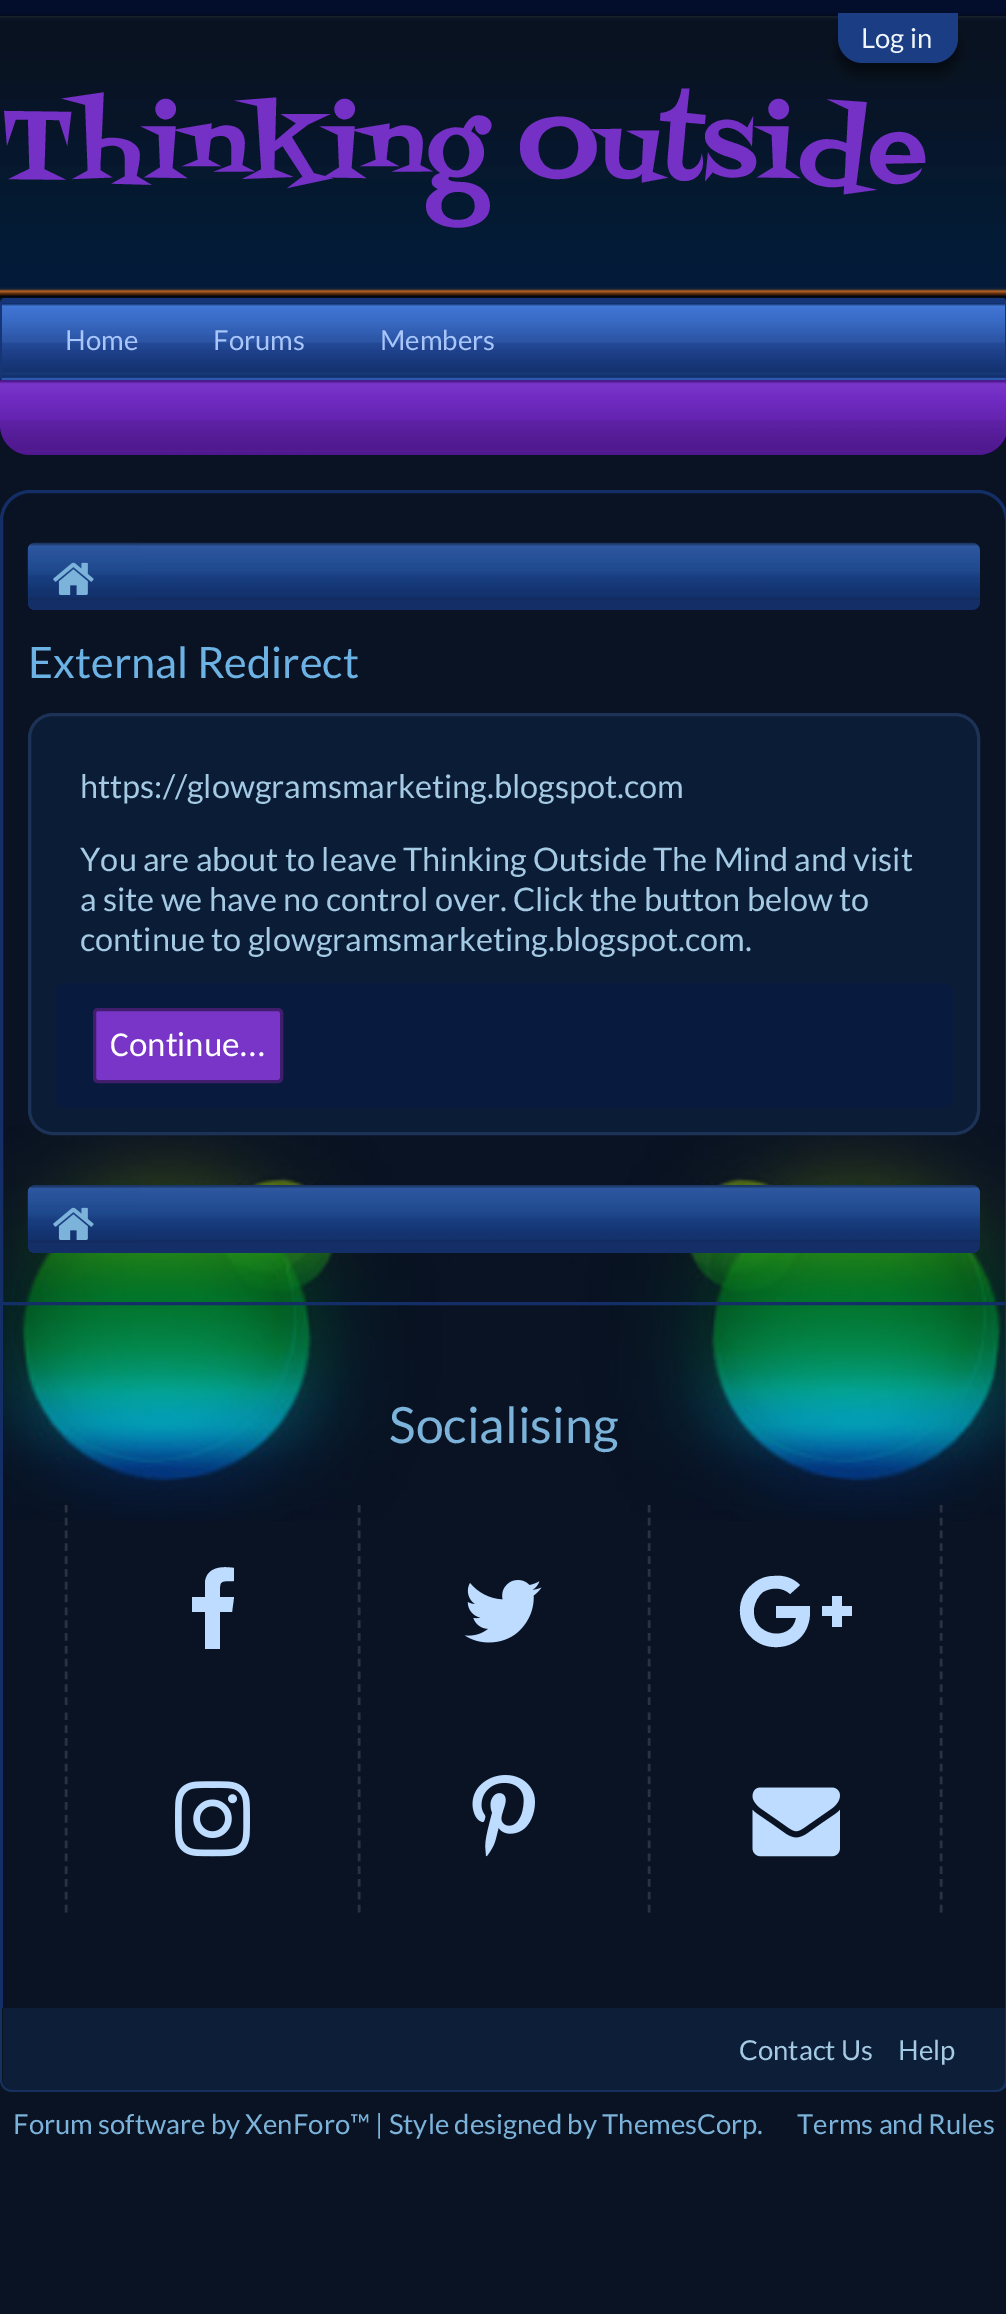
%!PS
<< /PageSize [1006 2314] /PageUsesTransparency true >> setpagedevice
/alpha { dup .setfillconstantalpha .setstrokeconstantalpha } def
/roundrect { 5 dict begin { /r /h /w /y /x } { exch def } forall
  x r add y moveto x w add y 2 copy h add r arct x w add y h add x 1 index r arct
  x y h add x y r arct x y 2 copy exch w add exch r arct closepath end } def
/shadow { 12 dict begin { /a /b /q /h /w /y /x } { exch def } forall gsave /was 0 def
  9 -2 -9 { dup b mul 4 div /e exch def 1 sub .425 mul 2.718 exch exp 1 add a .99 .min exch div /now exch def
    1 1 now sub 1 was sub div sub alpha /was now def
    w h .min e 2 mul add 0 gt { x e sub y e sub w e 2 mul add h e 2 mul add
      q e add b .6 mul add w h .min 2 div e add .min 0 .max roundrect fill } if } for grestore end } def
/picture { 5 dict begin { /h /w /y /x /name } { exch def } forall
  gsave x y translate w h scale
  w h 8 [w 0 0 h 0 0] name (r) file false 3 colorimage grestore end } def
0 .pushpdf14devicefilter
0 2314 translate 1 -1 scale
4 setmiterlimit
0.035 0.075 0.141 setrgbcolor
0 0 1006 2314 rectfill
(img1.rgb) 3 1125 1002 396 picture
0.008 0.055 0.169 setrgbcolor
0 0 1006 13 rectfill
0.012 0.047 0.133 setrgbcolor
0 13 1006 3 rectfill
(img2.rgb) 0 16 1006 282 picture
(img3.rgb) 0 16 1006 282 picture
0 setgray
838 25 120 50 25 6 0.5 shadow
0.106 0.239 0.518 setrgbcolor
newpath 838 13 moveto 958 13 lineto 958 38 lineto 958 52 947 63 933 63 curveto 863 63 lineto 849 63 838 52 838 38 curveto closepath fill
/Lato-Regular [27.5 0 0 -27.5 0 0] selectfont
0.941 0.969 0.988 setrgbcolor
861 48 moveto (Log in) show
/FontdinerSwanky-Regular [100 0 0 -100 0 0] selectfont
0.459 0.188 0.776 setrgbcolor
0 178 moveto (Thinking Outside) show
0.106 0.239 0.518 setrgbcolor
newpath 5 302 moveto 1005 302 lineto 1005 378 lineto 2 378 lineto 2 302 lineto closepath fill
(img4.rgb) 2 302 1003 76 picture
0.082 0.208 0.463 setrgbcolor
newpath 5 298 moveto 3 298 2 299 1 300 curveto 2 302 lineto 1005 302 lineto 1006 300 lineto 1005 299 1004 298 1002 298 curveto closepath fill
newpath 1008 379 moveto 1006 380 lineto 1005 378 lineto 1005 302 lineto 1006 300 lineto 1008 301 lineto closepath fill
0.173 0.353 0.682 setrgbcolor
newpath 1006 380 moveto 1003 382 lineto 5 382 lineto 4 382 2 382 1 380 curveto 2 378 lineto 1005 378 lineto closepath fill
0.082 0.208 0.463 setrgbcolor
newpath 0 302 moveto 0 378 lineto 1 380 lineto 2 378 lineto 2 302 lineto 1 300 lineto closepath fill
/Lato-Regular [27.5 0 0 -27.5 0 0] selectfont
0.663 0.776 0.988 setrgbcolor
65 350 moveto (Home) show
213 350 moveto (Forums) show
380 350 moveto (Members) show
0.412 0.047 0.8 setrgbcolor
newpath 0 380 moveto 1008 380 lineto 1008 425 lineto 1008 441.5 994.5 455 978 455 curveto 30 455 lineto 13.5 455 0 441.5 0 425 curveto closepath fill
(img5.rgb) 0 380 1006 75 picture
0.078 0.184 0.408 setrgbcolor
3 setlinewidth
newpath 30 491.5 moveto 978 491.5 lineto 993.5 491.5 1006.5 504.5 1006.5 520 curveto 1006.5 1303.5 lineto 1.5 1303.5 lineto 1.5 520 lineto 1.5 504.5 14.5 491.5 30 491.5 curveto closepath stroke
28 543 952 67 8 roundrect fill
(img6.rgb) 27 542 953 58 picture
gsave
28 543 952 67 8 roundrect clip newpath
newpath 36 543 moveto 140 543 lineto 140 613 lineto 36 613 lineto 31.5 613 28 609.5 28 605 curveto 28 551 lineto 28 546.5 31.5 543 36 543 curveto closepath fill
grestore
(img7.rgb) 27 542 113 58 picture
(img8.rgb) 53 562 41 33 picture
/Lato-Regular [43.25 0 0 -43.25 0 0] selectfont
0.424 0.698 0.894 setrgbcolor
28 678 moveto (External Redirect) show
0.043 0.11 0.216 setrgbcolor
29.5 714.5 949 419 23.5 roundrect gsave fill grestore
0.11 0.196 0.337 setrgbcolor
stroke
/Lato-Regular [32.5 0 0 -32.5 0 0] selectfont
0.647 0.792 0.894 setrgbcolor
80 798 moveto (https://glowgramsmarketing.blogspot.com) show
80 871 moveto (You are about to leave Thinking Outside The Mind and visit) show
80 911 moveto (a site we have no control over. Click the button below to) show
80 951 moveto (continue to glowgramsmarketing.blogspot.com.) show
0.031 0.106 0.247 setrgbcolor
55 983 898 125 10 roundrect fill
0.475 0.208 0.784 setrgbcolor
94.5 1009.5 187 72 3.5 roundrect gsave fill grestore
0.251 0.114 0.427 setrgbcolor
stroke
/Carlito-Regular [35 0 0 -35 0 0] selectfont
1 setgray
110 1056 moveto (Continue...) show
0.078 0.184 0.408 setrgbcolor
28 1185 952 68 8 roundrect fill
(img9.rgb) 27 1185 953 58 picture
gsave
28 1185 952 68 8 roundrect clip newpath
newpath 36 1185 moveto 140 1185 lineto 140 1255 lineto 36 1255 lineto 31.5 1255 28 1251.5 28 1247 curveto 28 1193 lineto 28 1188.5 31.5 1185 36 1185 curveto closepath fill
grestore
(img10.rgb) 27 1185 113 58 picture
(img11.rgb) 53 1207 41 33 picture
1005 1305 1 703 rectfill
0 1305 3 703 rectfill
/Lato-Regular [50 0 0 -50 0 0] selectfont
0.486 0.702 0.855 setrgbcolor
389 1443 moveto (Socialising) show
0.161 0.196 0.255 setrgbcolor
2.5 setlinewidth
[7.5 5.32] 0 setdash
newpath 66 1505 moveto 66 1705 lineto stroke
0.741 0.863 1 setrgbcolor
newpath 234 1568 moveto 234 1581 lineto 218 1581 220 1581 220 1597 curveto 234 1597 lineto 232 1612 lineto 220 1612 lineto 220 1649 lineto 205 1649 lineto 205 1612 lineto 192 1612 lineto 192 1597 lineto 205 1597 lineto 205 1582 lineto 207 1567 222 1566 234 1568 curveto closepath fill
0.161 0.196 0.251 setrgbcolor
newpath 359 1505 moveto 359 1705 lineto stroke
(img12.rgb) 464 1580 78 63 picture
0.13 alpha
1 setgray
newpath 941 1505 moveto 941 1705 lineto stroke
1 alpha
0.161 0.196 0.251 setrgbcolor
newpath 649 1505 moveto 649 1705 lineto stroke
0.741 0.863 1 setrgbcolor
newpath 810 1612 moveto 810 1631 798 1646 778 1647 curveto 743 1649 726 1604 754 1583 curveto 760 1578 767 1576 774 1576 curveto 784 1575 793 1578 800 1585 curveto 790 1594 lineto 783 1587 771 1587 763 1592 curveto 758 1596 755 1602 754 1608 curveto 750 1637 792 1643 796 1618 curveto 776 1618 lineto 776 1606 lineto 810 1606 lineto closepath 852 1606 moveto 852 1616 lineto 842 1616 lineto 842 1627 lineto 832 1627 lineto 832 1616 lineto 822 1616 lineto 822 1606 lineto 832 1606 lineto 832 1596 lineto 842 1596 lineto 842 1606 lineto closepath fill
0.161 0.196 0.251 setrgbcolor
newpath 66 1712.5 moveto 66 1912.5 lineto stroke
(img13.rgb) 175 1781 75 76 picture
newpath 359 1712.5 moveto 359 1912.5 lineto stroke
(img14.rgb) 472 1775 63 82 picture
newpath 941 1712.5 moveto 941 1912.5 lineto stroke
newpath 649 1712.5 moveto 649 1912.5 lineto stroke
(img15.rgb) 752 1787 88 70 picture
0.051 0.118 0.224 setrgbcolor
newpath 3 2008 moveto 1005 2008 lineto 1005 2080 lineto 1005 2085.5 1000.5 2090 995 2090 curveto 13 2090 lineto 7.5 2090 3 2085.5 3 2080 curveto closepath fill
0.086 0.192 0.365 setrgbcolor
newpath 0 2008 moveto 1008 2008 lineto 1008 2080 lineto 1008 2087 1002 2092 995 2092 curveto 12 2092 lineto 6 2092 0 2087 0 2080 curveto closepath 2 2008 moveto 1005 2008 lineto 1005 2080 lineto 1005 2086 1001 2090 995 2090 curveto 12 2090 lineto 7 2090 2 2086 2 2080 curveto closepath eofill
/Lato-Regular [27.5 0 0 -27.5 0 0] selectfont
0.647 0.792 0.894 setrgbcolor
739 2060 moveto (Contact Us) show
898 2060 moveto (Help) show
0.486 0.702 0.855 setrgbcolor
13 2134 moveto (Forum software by XenForo™ | Style designed by ThemesCorp.) show
797 2134 moveto (Terms and Rules) show
.poppdf14devicefilter showpage
